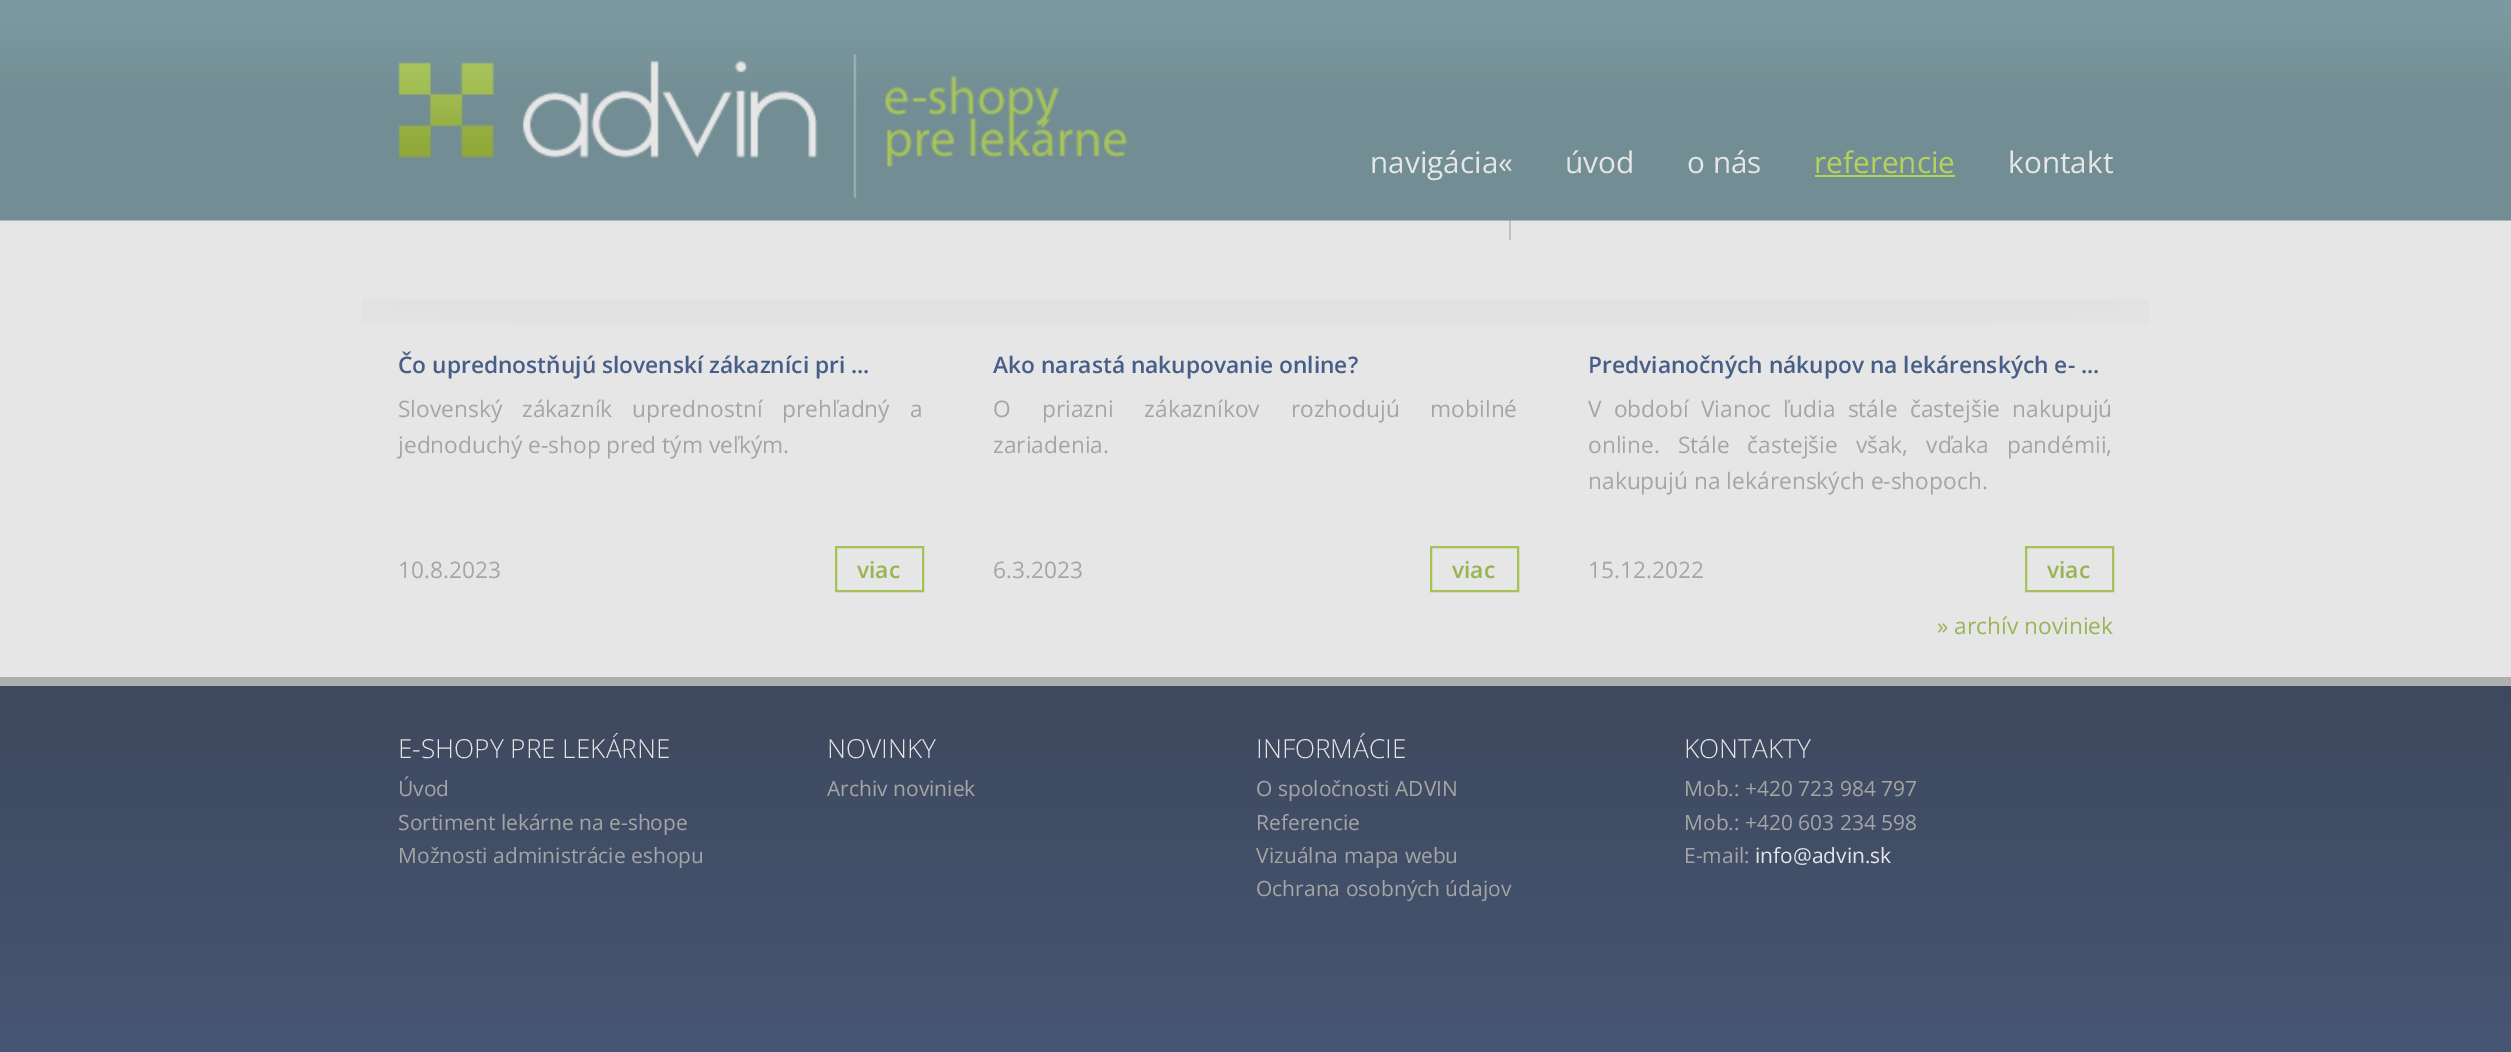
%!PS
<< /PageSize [2511 1052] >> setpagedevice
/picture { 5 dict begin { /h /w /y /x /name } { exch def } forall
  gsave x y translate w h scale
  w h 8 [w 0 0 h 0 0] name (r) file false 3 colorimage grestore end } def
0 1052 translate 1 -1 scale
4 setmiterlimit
0.902 setgray
0 0 2511 1052 rectfill
0.761 setgray
1509 220 2 20 rectfill
(img1.rgb) 0 0 2511 221 picture
(img2.rgb) 398 54 730 145 picture
/OpenSans-Regular [29.75 0 0 -29.75 0 0] selectfont
0.902 setgray
1370 173 moveto (navigácia«) show
1565 173 moveto (úvod) show
1687 173 moveto (o nás) show
0.706 0.827 0.365 setrgbcolor
1814 173 moveto (referencie) show
1815 175 140 2 rectfill
0.902 setgray
2008 173 moveto (kontakt) show
(img3.rgb) 362 299 1787 26 picture
/OpenSans-SemiBold [22.75 0 0 -22.75 0 0] selectfont
0.275 0.369 0.533 setrgbcolor
398 373 moveto (Čo uprednostňujú slovenskí zákazníci pri ...) show
/OpenSans-Regular [22.75 0 0 -22.75 0 0] selectfont
0.647 setgray
398 417 moveto 14 0 32 (Slovenský zákazník uprednostní prehľadný a) widthshow
398 453 moveto (jednoduchý e-shop pred tým veľkým.) show
398 578 moveto (10.8.2023) show
0.647 0.757 0.341 setrgbcolor
2 setlinewidth
836 547 87 44 rectstroke
/OpenSans-SemiBold [22.75 0 0 -22.75 0 0] selectfont
0.6 0.702 0.333 setrgbcolor
857 578 moveto (viac) show
0.275 0.369 0.533 setrgbcolor
993 373 moveto (Ako narastá nakupovanie online?) show
/OpenSans-Regular [22.75 0 0 -22.75 0 0] selectfont
0.647 setgray
993 417 moveto 25 0 32 (O priazni zákazníkov rozhodujú mobilné) widthshow
993 453 moveto (zariadenia.) show
993 578 moveto (6.3.2023) show
0.647 0.757 0.341 setrgbcolor
1431 547 87 44 rectstroke
/OpenSans-SemiBold [22.75 0 0 -22.75 0 0] selectfont
0.6 0.702 0.333 setrgbcolor
1452 578 moveto (viac) show
0.275 0.369 0.533 setrgbcolor
1588 373 moveto (Predvianočných nákupov na lekárenských e- ...) show
/OpenSans-Regular [22.75 0 0 -22.75 0 0] selectfont
0.647 setgray
1588 417 moveto 6.25 0 32 (V období Vianoc ľudia stále častejšie nakupujú) widthshow
1588 453 moveto 12 0 32 (online. Stále častejšie však, vďaka pandémii,) widthshow
1588 489 moveto (nakupujú na lekárenských e-shopoch.) show
1588 578 moveto (15.12.2022) show
0.647 0.757 0.341 setrgbcolor
2026 547 87 44 rectstroke
/OpenSans-SemiBold [22.75 0 0 -22.75 0 0] selectfont
0.6 0.702 0.333 setrgbcolor
2047 578 moveto (viac) show
/OpenSans-Regular [22.75 0 0 -22.75 0 0] selectfont
1937 634 moveto (» archív noviniek) show
gsave newpath 0 686 moveto 2511 686 lineto 2511 1052 lineto 0 1052 lineto closepath clip newpath
<< /ShadingType 2 /ColorSpace /DeviceRGB /Coords [1256 686 1256 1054] /Extend [true true] /Function << /FunctionType 3 /Domain [0 1] /Functions [<< /FunctionType 2 /Domain [0 1] /C0 [0.243 0.286 0.369] /C1 [0.243 0.286 0.369] /N 1 >> << /FunctionType 2 /Domain [0 1] /C0 [0.243 0.286 0.369] /C1 [0.278 0.337 0.451] /N 1 >>] /Bounds [0.01] /Encode [0 1 0 1] >> >> shfill grestore
0.682 setgray
0 677 2511 9 rectfill
/OpenSans-Light [26.25 0 0 -26.25 0 0] selectfont
0.902 setgray
398 758 moveto (E-SHOPY PRE LEKÁRNE) show
/OpenSans-Regular [21 0 0 -21 0 0] selectfont
0.647 setgray
398 796 moveto (Úvod) show
398 830 moveto (Sortiment lekárne na e-shope) show
398 863 moveto (Možnosti administrácie eshopu) show
/OpenSans-Light [26.25 0 0 -26.25 0 0] selectfont
0.902 setgray
827 758 moveto (NOVINKY) show
/OpenSans-Regular [21 0 0 -21 0 0] selectfont
0.647 setgray
827 796 moveto (Archiv noviniek) show
/OpenSans-Light [26.25 0 0 -26.25 0 0] selectfont
0.902 setgray
1256 758 moveto (INFORMÁCIE) show
/OpenSans-Regular [21 0 0 -21 0 0] selectfont
0.647 setgray
1256 796 moveto (O spoločnosti ADVIN) show
1256 830 moveto (Referencie) show
1256 863 moveto (Vizuálna mapa webu) show
1256 896 moveto (Ochrana osobných údajov) show
/OpenSans-Light [26.25 0 0 -26.25 0 0] selectfont
0.902 setgray
1684 758 moveto (KONTAKTY) show
/OpenSans-Regular [21 0 0 -21 0 0] selectfont
0.647 setgray
1684 796 moveto (Mob.: +420 723 984 797) show
1684 830 moveto (Mob.: +420 603 234 598) show
1684 863 moveto (E-mail:) show
0.902 setgray
1755 863 moveto (info@advin.sk) show
showpage
